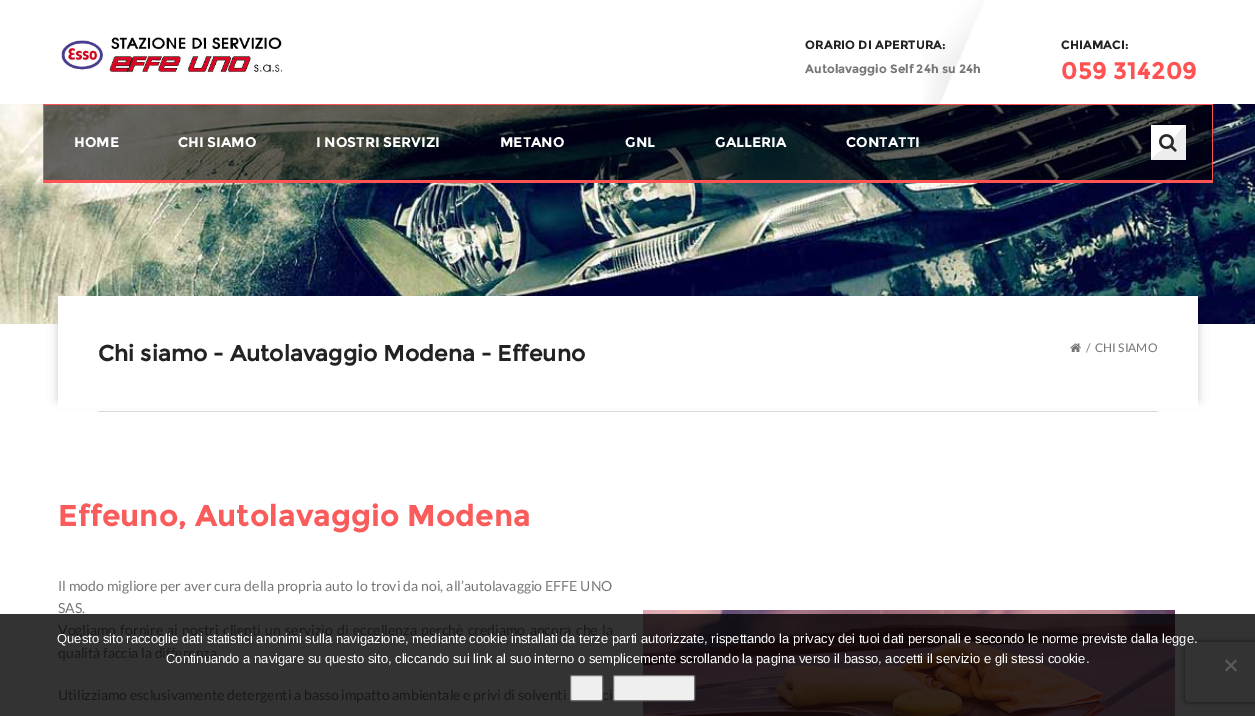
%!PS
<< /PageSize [1255 716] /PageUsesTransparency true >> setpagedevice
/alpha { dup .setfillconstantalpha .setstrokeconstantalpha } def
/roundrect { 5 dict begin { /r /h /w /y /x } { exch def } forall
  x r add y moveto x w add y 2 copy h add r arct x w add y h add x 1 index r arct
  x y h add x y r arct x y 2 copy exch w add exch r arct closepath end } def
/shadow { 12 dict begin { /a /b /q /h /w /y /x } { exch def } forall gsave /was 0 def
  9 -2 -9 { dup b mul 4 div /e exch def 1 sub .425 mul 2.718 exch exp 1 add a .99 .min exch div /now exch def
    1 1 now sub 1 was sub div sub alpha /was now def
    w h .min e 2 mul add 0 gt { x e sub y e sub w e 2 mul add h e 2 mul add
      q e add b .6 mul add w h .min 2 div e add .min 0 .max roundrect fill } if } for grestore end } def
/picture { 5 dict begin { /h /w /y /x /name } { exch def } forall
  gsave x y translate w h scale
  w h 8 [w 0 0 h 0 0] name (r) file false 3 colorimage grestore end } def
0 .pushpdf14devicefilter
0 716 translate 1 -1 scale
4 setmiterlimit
1 setgray
0 0 1255 716 rectfill
0.2 setgray
0 614 1255 102 rectfill
(img1.rgb) 923 0 61 104 picture
(img2.rgb) 60 37 223 36 picture
/Montserrat-Bold [12 0 0 -12 0 0] selectfont
0.137 setgray
805 49 moveto (ORARIO DI APERTURA:) show
0.467 setgray
805 73 moveto (Autolavaggio Self 24h su 24h) show
0.137 setgray
1061 49 moveto (CHIAMACI:) show
/Montserrat-Bold [24 0 0 -24 0 0] selectfont
1 0.322 0.322 setrgbcolor
1061 79 moveto (059 314209) show
(img3.rgb) 0 104 1255 220 picture
0.6 alpha
0 setgray
44 105 1168 75 rectfill
1 alpha
1 0.322 0.322 setrgbcolor
43 104 1170 1 rectfill
1212 104 1 79 rectfill
43 180 1170 3 rectfill
43 104 1 79 rectfill
/Montserrat-Bold [14 0 0 -14 0 0] selectfont
1 setgray
74 147 moveto (HOME) show
178 147 moveto (CHI SIAMO) show
316 147 moveto (I NOSTRI SERVIZI) show
500 147 moveto (METANO) show
625 147 moveto (GNL) show
715 147 moveto (GALLERIA) show
846 147 moveto (CONTATTI) show
gsave newpath 1151 125 moveto 1186 125 lineto 1186 160 lineto 1151 160 lineto closepath clip newpath
<< /ShadingType 2 /ColorSpace /DeviceRGB /Coords [1151 125 1186 160] /Extend [true true] /Function << /FunctionType 3 /Domain [0 1] /Functions [<< /FunctionType 2 /Domain [0 1] /C0 [1 1 1] /C1 [1 1 1] /N 1 >> << /FunctionType 2 /Domain [0 1] /C0 [0.929 0.929 0.929] /C1 [0.929 0.929 0.929] /N 1 >>] /Bounds [0.5] /Encode [0 1 0 1] >> >> shfill grestore
(img4.rgb) 1159 134 18 18 picture
0 setgray
58 306 1140 94 0 5 0.2 shadow
1 setgray
58 296 1140 112 rectfill
/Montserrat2-Bold [22 0 0 -22 0 0] selectfont
0.137 setgray
98 361 moveto (Chi siamo - Autolavaggio Modena - Effeuno) show
(img5.rgb) 1070 343 11 9 picture
/Lato-Regular [12 0 0 -12 0 0] selectfont
0.467 setgray
1086 352 moveto (/) show
1095 352 moveto (CHI SIAMO) show
0.847 setgray
98 411 1060 1 rectfill
/Montserrat-Bold [30 0 0 -30 0 0] selectfont
0.98 0.361 0.361 setrgbcolor
58 526 moveto (Effeuno, Autolavaggio Modena) show
/Lato-Regular [14 0 0 -14 0 0] selectfont
0.467 setgray
58 591 moveto 0.4 0 32 (Il modo migliore per aver cura della propria auto lo trovi da noi, all’autolavaggio EFFE UNO) widthshow
58 613 moveto (SAS.) show
0.094 setgray
58 635 moveto 1.75 0 32 (Vogliamo fornire ai nostri clienti un servizio di eccellenza perchè crediamo ancora che la) widthshow
58 658 moveto (qualità faccia la differenza.) show
58 700 moveto (Utilizziamo esclusivamente detergenti a basso impatto ambientale e privi di solventi) show
602 700 moveto (ci) show
(img6.rgb) 643 610 532 106 picture
gsave
newpath 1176 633 moveto 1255 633 lineto 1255 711 lineto 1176 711 lineto closepath 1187 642 moveto 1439 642 lineto 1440 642 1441 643 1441 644 curveto 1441 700 lineto 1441 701 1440 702 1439 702 curveto 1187 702 lineto 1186 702 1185 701 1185 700 curveto 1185 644 lineto 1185 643 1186 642 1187 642 curveto closepath eoclip newpath
0.102 setgray
1185 642 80 60 2 2.5 1 shadow
grestore
/LiberationSans-Regular [13 0 0 -13 0 0] selectfont
1 setgray
57 643 moveto (Questo sito raccoglie dati statistici anonimi sulla navigazione, mediante cookie installati da terze parti autorizzate, rispettando la privacy dei tuoi dati personali e secondo le norme previste dalla legge.) show
166 663 moveto (Continuando a navigare su questo sito, cliccando sui link al suo interno o semplicemente scrollando la pagina verso il basso, accetti il servizio e gli stessi cookie.) show
0.353 setgray
newpath 1235.5 659.5 moveto 1237 661 lineto 1226.5 671.5 lineto 1225 670 lineto closepath fill
newpath 1225 661 moveto 1226.5 659.5 lineto 1237 670 lineto 1235.5 671.5 lineto closepath fill
0.937 setgray
570.5 675.5 32 25 1.5 roundrect gsave fill grestore
0.463 setgray
stroke
0.937 setgray
613.5 675.5 81 25 1.5 roundrect gsave fill grestore
0.463 setgray
stroke
.poppdf14devicefilter showpage
